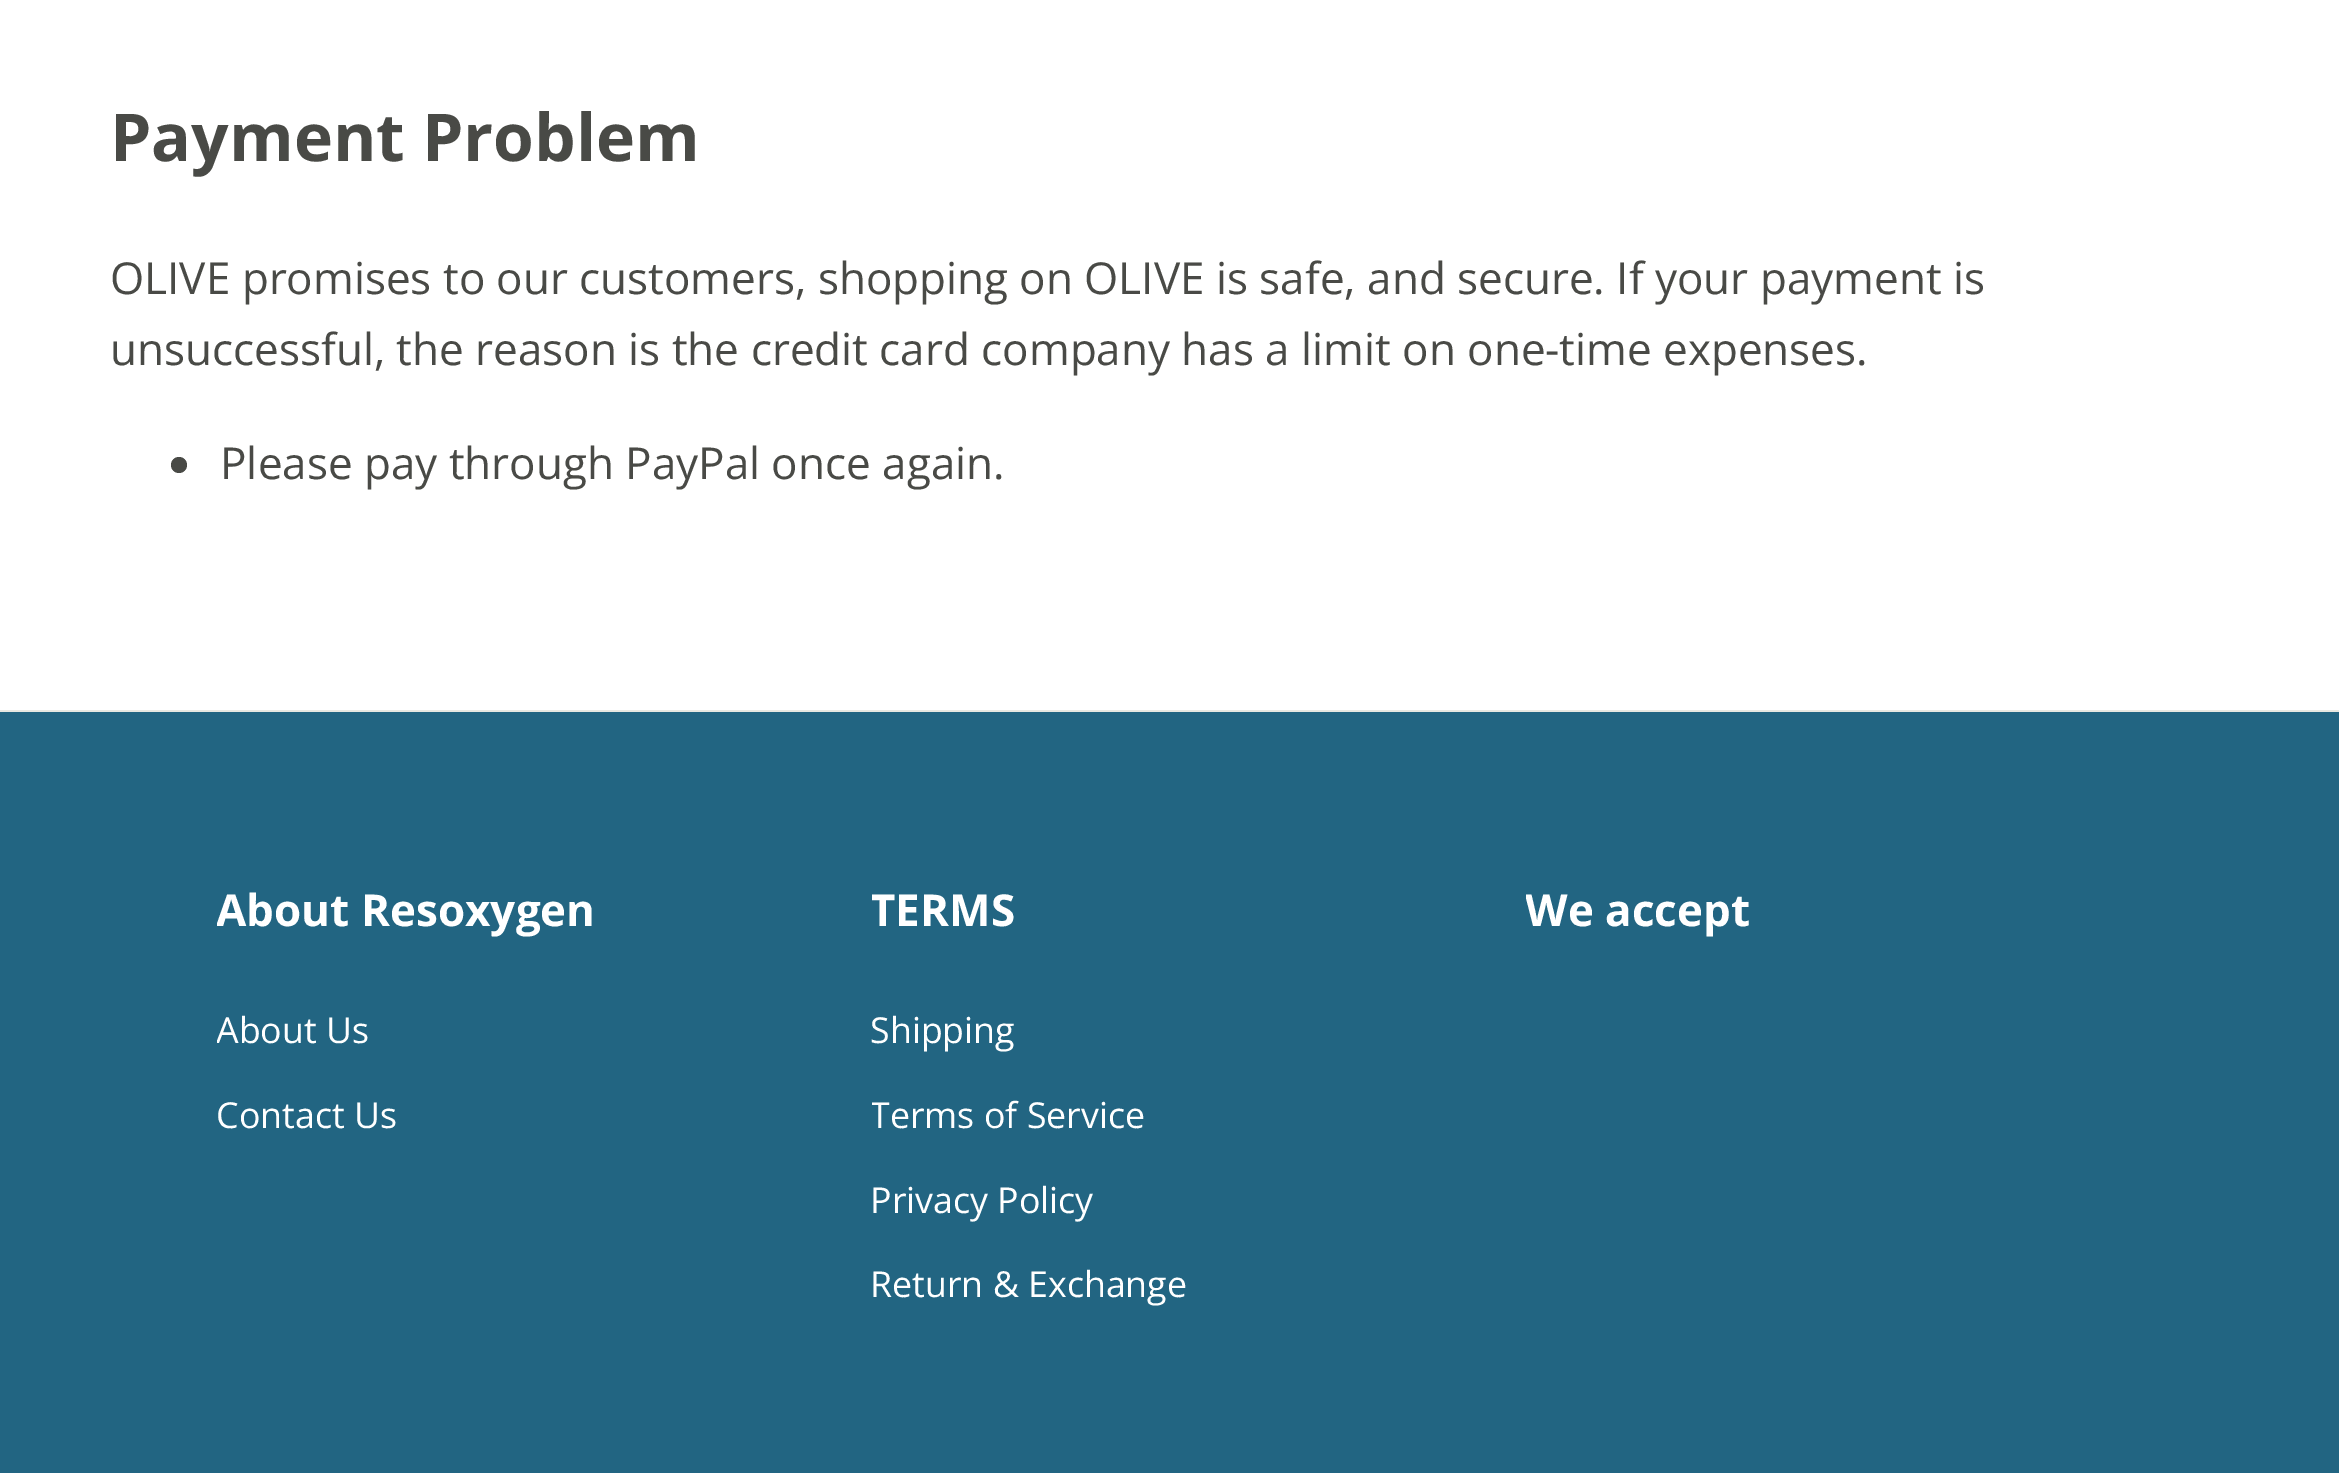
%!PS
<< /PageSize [2339 1473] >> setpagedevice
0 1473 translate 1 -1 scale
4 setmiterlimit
1 setgray
0 0 2339 1473 rectfill
/OpenSans-Bold [66 0 0 -66 0 0] selectfont
0.286 0.29 0.275 setrgbcolor
110 161 moveto (Payment Problem) show
/OpenSans-Regular [44 0 0 -44 0 0] selectfont
110 294 moveto (OLIVE promises to our customers, shopping on OLIVE is safe, and secure. If your payment is) show
110 365 moveto (unsuccessful, the reason is the credit card company has a limit on one-time expenses.) show
newpath 179 465 8 0 360 arc closepath fill
220 479 moveto (Please pay through PayPal once again.) show
0.91 0.91 0.882 setrgbcolor
0 710 2339 2 rectfill
0.133 0.396 0.51 setrgbcolor
0 712 2339 761 rectfill
gsave
217 877 600 438 rectclip
/OpenSans-Bold [44 0 0 -44 0 0] selectfont
1 setgray
216 926 moveto (About Resoxygen) show
/OpenSans-Regular [35.75 0 0 -35.75 0 0] selectfont
216 1043 moveto (About Us) show
grestore
/OpenSans-Regular [35.75 0 0 -35.75 0 0] selectfont
1 setgray
216 1128 moveto (Contact Us) show
gsave
872 877 599 438 rectclip
/OpenSans-Bold [44 0 0 -44 0 0] selectfont
870 926 moveto (TERMS) show
grestore
870 1043 moveto (Shipping) show
gsave
872 877 599 438 rectclip
870 1128 moveto (Terms of Service) show
grestore
870 1213 moveto (Privacy Policy) show
870 1297 moveto (Return & Exchange) show
gsave
1526 877 600 438 rectclip
/OpenSans-Bold [44 0 0 -44 0 0] selectfont
1525 926 moveto (We accept) show
grestore
showpage
